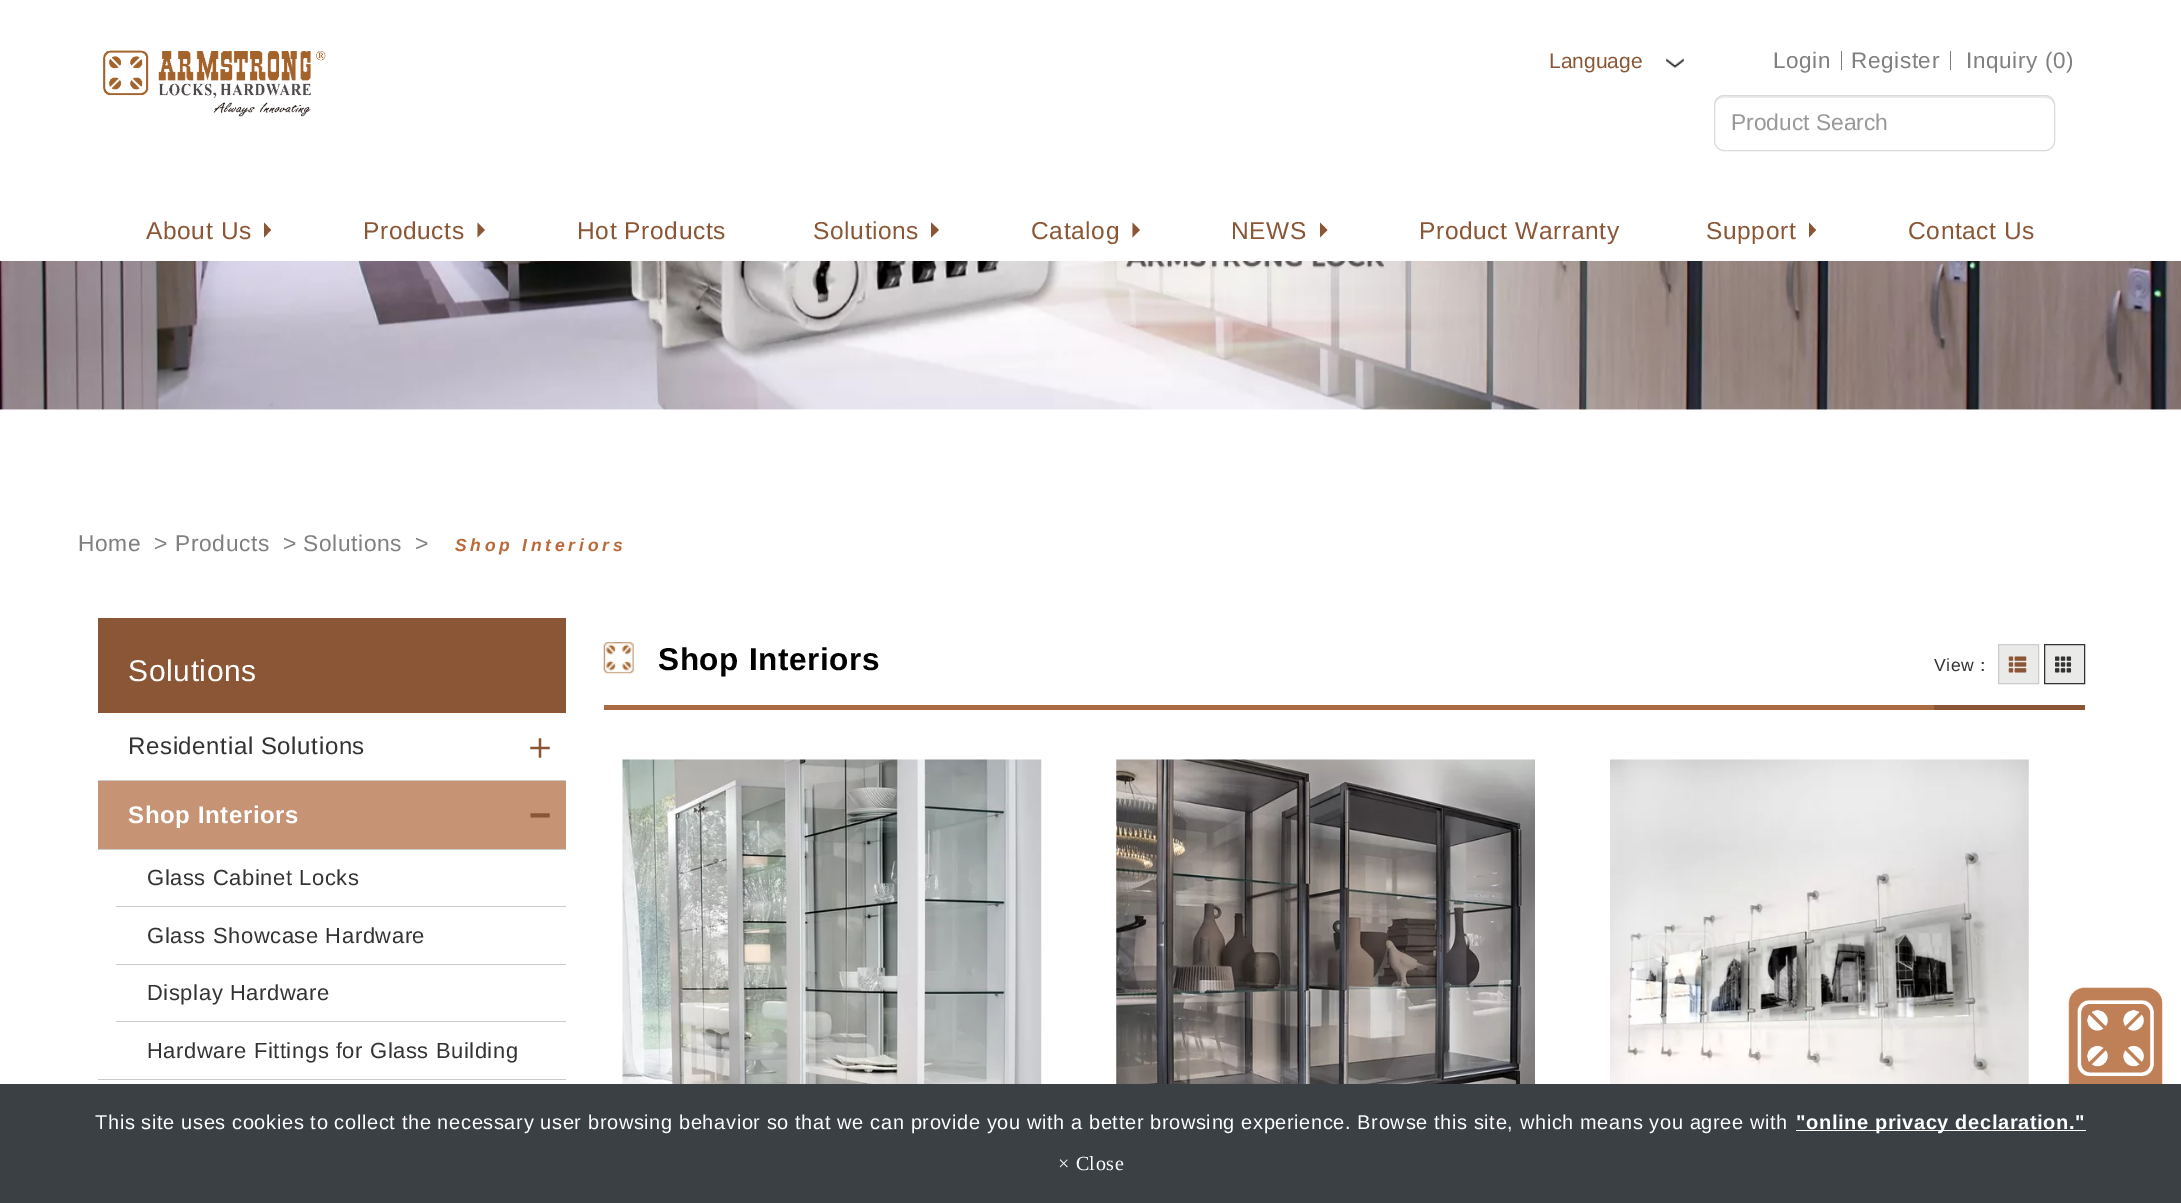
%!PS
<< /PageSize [2181 1203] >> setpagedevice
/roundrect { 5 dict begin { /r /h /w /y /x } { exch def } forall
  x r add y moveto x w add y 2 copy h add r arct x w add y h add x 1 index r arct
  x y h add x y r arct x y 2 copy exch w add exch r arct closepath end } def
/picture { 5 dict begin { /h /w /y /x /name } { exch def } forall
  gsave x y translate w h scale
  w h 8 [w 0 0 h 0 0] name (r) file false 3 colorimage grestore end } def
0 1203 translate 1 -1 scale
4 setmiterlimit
1 setgray
0 0 2181 1203 rectfill
(img1.rgb) 103 50 223 67 picture
/LiberationSans-Regular [21 0 0 -21 0 0] selectfont
0.545 0.337 0.208 setrgbcolor
1549 68 moveto (Language) show
(img2.rgb) 1666 58 18 10 picture
/LiberationSans-Regular [22.5 0 0 -22.5 0 0] selectfont
0.502 setgray
1773 68 moveto 0.62 0 (Login) ashow
1841 51 1 19 rectfill
1851 68 moveto 0.62 0 (Register) ashow
1950 51 1 19 rectfill
1966 68 moveto 0.62 0 (Inquiry \(0\)) ashow
0.925 setgray
newpath 1724 98 moveto 2045 98 lineto 2050 98 2054 101 2054 106 curveto 2054 101 2051 96 2045 96 curveto 1722 96 lineto 1717 97 1715 101 1715 106 curveto 1715 101 1719 98 1724 98 curveto closepath fill
0.855 setgray
1714.5 95.5 340 55 9.5 roundrect stroke
/LiberationSans-Regular [22.75 0 0 -22.75 0 0] selectfont
0.6 setgray
1731 130 moveto (Product Search) show
/LiberationSans-Regular [24.5 0 0 -24.5 0 0] selectfont
0.545 0.337 0.208 setrgbcolor
146 239 moveto 0.62 0 (About Us) ashow
newpath 264 237.5 moveto 264 222.5 lineto 271 230 lineto closepath fill
363 239 moveto 0.62 0 (Products) ashow
newpath 477.5 237.5 moveto 477.5 222.5 lineto 485 230 lineto closepath fill
577 239 moveto 0.62 0 (Hot Products) ashow
813 239 moveto 0.62 0 (Solutions) ashow
newpath 931 237.5 moveto 931 222.5 lineto 939 230 lineto closepath fill
1031 239 moveto 0.62 0 (Catalog) ashow
newpath 1132.5 237.5 moveto 1132.5 222.5 lineto 1140 230 lineto closepath fill
1231 239 moveto 0.62 0 (NEWS) ashow
newpath 1320 237.5 moveto 1320 222.5 lineto 1327.5 230 lineto closepath fill
1419 239 moveto 0.62 0 (Product Warranty) ashow
1706 239 moveto 0.62 0 (Support) ashow
newpath 1809 237.5 moveto 1809 222.5 lineto 1816 230 lineto closepath fill
1908 239 moveto 0.62 0 (Contact Us) ashow
(img3.rgb) 0 261 2181 149 picture
/LiberationSans-Regular [22.75 0 0 -22.75 0 0] selectfont
0.502 setgray
78 551 moveto 0.62 0 (Home) ashow
154 551 moveto 0.62 0 (>) ashow
175 551 moveto 0.62 0 (Products) ashow
283 551 moveto 0.62 0 (>) ashow
303 551 moveto 0.62 0 (Solutions) ashow
415 551 moveto 0.62 0 (>) ashow
/LiberationSans-BoldItalic [17.5 0 0 -17.5 0 0] selectfont
0.729 0.416 0.227 setrgbcolor
455 551 moveto 3.75 0 (Shop Interiors) ashow
0.545 0.337 0.208 setrgbcolor
98 618 468 95 rectfill
/LiberationSans-Regular [30 0 0 -30 0 0] selectfont
1 setgray
128 681 moveto 0.62 0 (Solutions) ashow
0.796 setgray
98 780 468 1 rectfill
/LiberationSans-Regular [24 0 0 -24 0 0] selectfont
0.2 setgray
128 754 moveto 0.62 0 (Residential Solutions) ashow
/WenQuanYiZenHei-Medium [38 0 0 -38 0 0] selectfont
0.545 0.337 0.208 setrgbcolor
521 759 moveto 0.62 0 (＋) ashow
0.796 setgray
98 1079 468 1 rectfill
0.776 0.58 0.459 setrgbcolor
98 781 468 68 rectfill
0.796 setgray
98 849 468 1 rectfill
/LiberationSans-Bold [24 0 0 -24 0 0] selectfont
1 setgray
128 823 moveto 0.62 0 (Shop Interiors) ashow
/LiberationSans-Bold [38 0 0 -38 0 0] selectfont
0.545 0.337 0.208 setrgbcolor
529 828 moveto 0.62 0 (−) ashow
0.796 setgray
116 906 450 1 rectfill
/LiberationSans-Regular [21.9 0 0 -21.9 0 0] selectfont
0.2 setgray
147 885 moveto 0.62 0 (Glass Cabinet Locks) ashow
0.796 setgray
116 964 450 1 rectfill
0.2 setgray
147 943 moveto 0.62 0 (Glass Showcase Hardware) ashow
0.796 setgray
116 1021 450 1 rectfill
0.2 setgray
147 1000 moveto 0.62 0 (Display Hardware) ashow
147 1058 moveto 0.62 0 (Hardware Fittings for Glass Building) ashow
0.663 0.412 0.255 setrgbcolor
604 705 1330 5 rectfill
(img4.rgb) 603 642 31 32 picture
/LiberationSans-Bold [31.5 0 0 -31.5 0 0] selectfont
0 setgray
658 670 moveto 0.62 0 (Shop Interiors) ashow
0.545 0.337 0.208 setrgbcolor
1934 705 151 5 rectfill
/LiberationSans-Regular [17.5 0 0 -17.5 0 0] selectfont
0.2 setgray
1934 671 moveto 0.62 0 (View) ashow
/WenQuanYiZenHei-Medium [17.5 0 0 -17.5 0 0] selectfont
1974 671 moveto 0.62 0 (：) ashow
0.918 0.918 0.91 setrgbcolor
newpath 1998.5 644.5 moveto 2038.5 644.5 lineto 2038.5 683.5 lineto 1998.5 683.5 lineto closepath gsave fill grestore
0.8 setgray
stroke
(img5.rgb) 2008 656 19 17 picture
0.918 0.918 0.91 setrgbcolor
newpath 2044.5 644.5 moveto 2084.5 644.5 lineto 2084.5 683.5 lineto 2044.5 683.5 lineto closepath gsave fill grestore
0.2 setgray
stroke
(img6.rgb) 2055 656 17 17 picture
(img7.rgb) 622 759 420 325 picture
(img8.rgb) 1116 759 419 325 picture
(img9.rgb) 1610 759 419 325 picture
(img10.rgb) 2068 987 95 97 picture
0.231 0.251 0.271 setrgbcolor
0 1084 2181 119 rectfill
/LiberationSans-Regular [20 0 0 -20 0 0] selectfont
1 setgray
95 1129 moveto 0.62 0 (This site uses cookies to collect the necessary user browsing behavior so that we can provide you with a better browsing experience. Browse this site, which means you agree with) ashow
1796 1130 290 1 rectfill
/LiberationSans-Bold [20 0 0 -20 0 0] selectfont
1796 1129 moveto 0.62 0 ("online privacy declaration.") ashow
/LiberationSerif-Regular [20 0 0 -20 0 0] selectfont
1058 1170 moveto 0.62 0 (× Close) ashow
showpage
